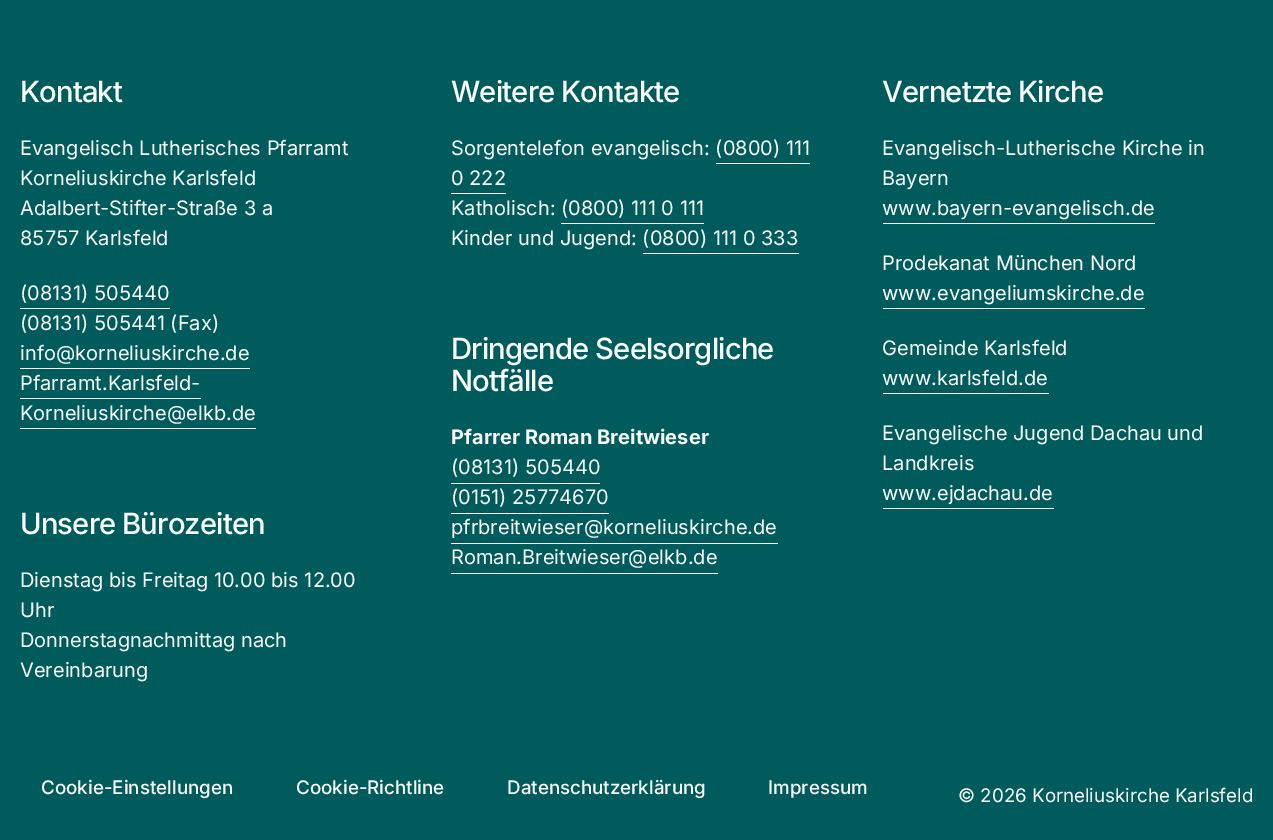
%!PS
<< /PageSize [1273 840] >> setpagedevice
0 840 translate 1 -1 scale
4 setmiterlimit
0 0.361 0.361 setrgbcolor
0 0 1273 840 rectfill
/Inter-Medium [29.25 0 0 -29.25 0 0] selectfont
0.988 setgray
20 102 moveto -0.9 0 (Kontakt) ashow
/Inter-Regular [20 0 0 -20 0 0] selectfont
20 155 moveto (Evangelisch Lutherisches Pfarramt) show
20 185 moveto (Korneliuskirche Karlsfeld) show
20 215 moveto (Adalbert-Stifter-Straße 3 a) show
20 245 moveto (85757 Karlsfeld) show
20 300 moveto (\(08131\) 505440) show
20 308 150 1 rectfill
20 330 moveto (\(08131\) 505441 \(Fax\)) show
20 360 moveto (info@korneliuskirche.de) show
20 368 230 1 rectfill
20 390 moveto (Pfarramt.Karlsfeld-) show
20 398 181 1 rectfill
20 420 moveto (Korneliuskirche@elkb.de) show
20 428 236 1 rectfill
/Inter-Medium [29.25 0 0 -29.25 0 0] selectfont
20 534 moveto -0.9 0 (Unsere Bürozeiten) ashow
/Inter-Regular [20 0 0 -20 0 0] selectfont
20 587 moveto (Dienstag bis Freitag 10.00 bis 12.00) show
20 617 moveto (Uhr) show
20 647 moveto (Donnerstagnachmittag nach) show
20 677 moveto (Vereinbarung) show
/Inter-Medium [29.25 0 0 -29.25 0 0] selectfont
451 102 moveto -0.9 0 (Weitere Kontakte) ashow
/Inter-Regular [20 0 0 -20 0 0] selectfont
451 155 moveto (Sorgentelefon evangelisch: \(0800\) 111) show
451 185 moveto (0 222) show
716 163 94 1 rectfill
451 193 55 1 rectfill
451 215 moveto (Katholisch: \(0800\) 111 0 111) show
561 223 143 1 rectfill
451 245 moveto (Kinder und Jugend: \(0800\) 111 0 333) show
643 253 156 1 rectfill
/Inter-Medium [29.25 0 0 -29.25 0 0] selectfont
451 359 moveto -0.9 0 (Dringende Seelsorgliche) ashow
451 391 moveto -0.9 0 (Notfälle) ashow
/Inter-Bold [20 0 0 -20 0 0] selectfont
451 444 moveto (Pfarrer Roman Breitwieser) show
/Inter-Regular [20 0 0 -20 0 0] selectfont
451 474 moveto (\(08131\) 505440) show
451 483 149 1 rectfill
451 504 moveto (\(0151\) 25774670) show
451 513 158 1 rectfill
451 534 moveto (pfrbreitwieser@korneliuskirche.de) show
451 543 327 1 rectfill
451 564 moveto (Roman.Breitwieser@elkb.de) show
451 573 267 1 rectfill
/Inter-Medium [29.25 0 0 -29.25 0 0] selectfont
882 102 moveto -0.9 0 (Vernetzte Kirche) ashow
/Inter-Regular [20 0 0 -20 0 0] selectfont
882 155 moveto (Evangelisch-Lutherische Kirche in) show
882 185 moveto (Bayern) show
882 215 moveto (www.bayern-evangelisch.de) show
883 223 272 1 rectfill
882 270 moveto (Prodekanat München Nord) show
882 300 moveto (www.evangeliumskirche.de) show
883 308 262 1 rectfill
882 355 moveto (Gemeinde Karlsfeld) show
882 385 moveto (www.karlsfeld.de) show
883 393 166 1 rectfill
882 440 moveto (Evangelische Jugend Dachau und) show
882 470 moveto (Landkreis) show
882 500 moveto (www.ejdachau.de) show
883 508 171 1 rectfill
/Inter-Medium [18.75 0 0 -18.75 0 0] selectfont
41 794 moveto (Cookie-Einstellungen) show
296 794 moveto (Cookie-Richtline) show
507 794 moveto (Datenschutzerklärung) show
768 794 moveto (Impressum) show
/Inter-Regular [18.75 0 0 -18.75 0 0] selectfont
958 802 moveto (© 2026 Korneliuskirche Karlsfeld) show
showpage
